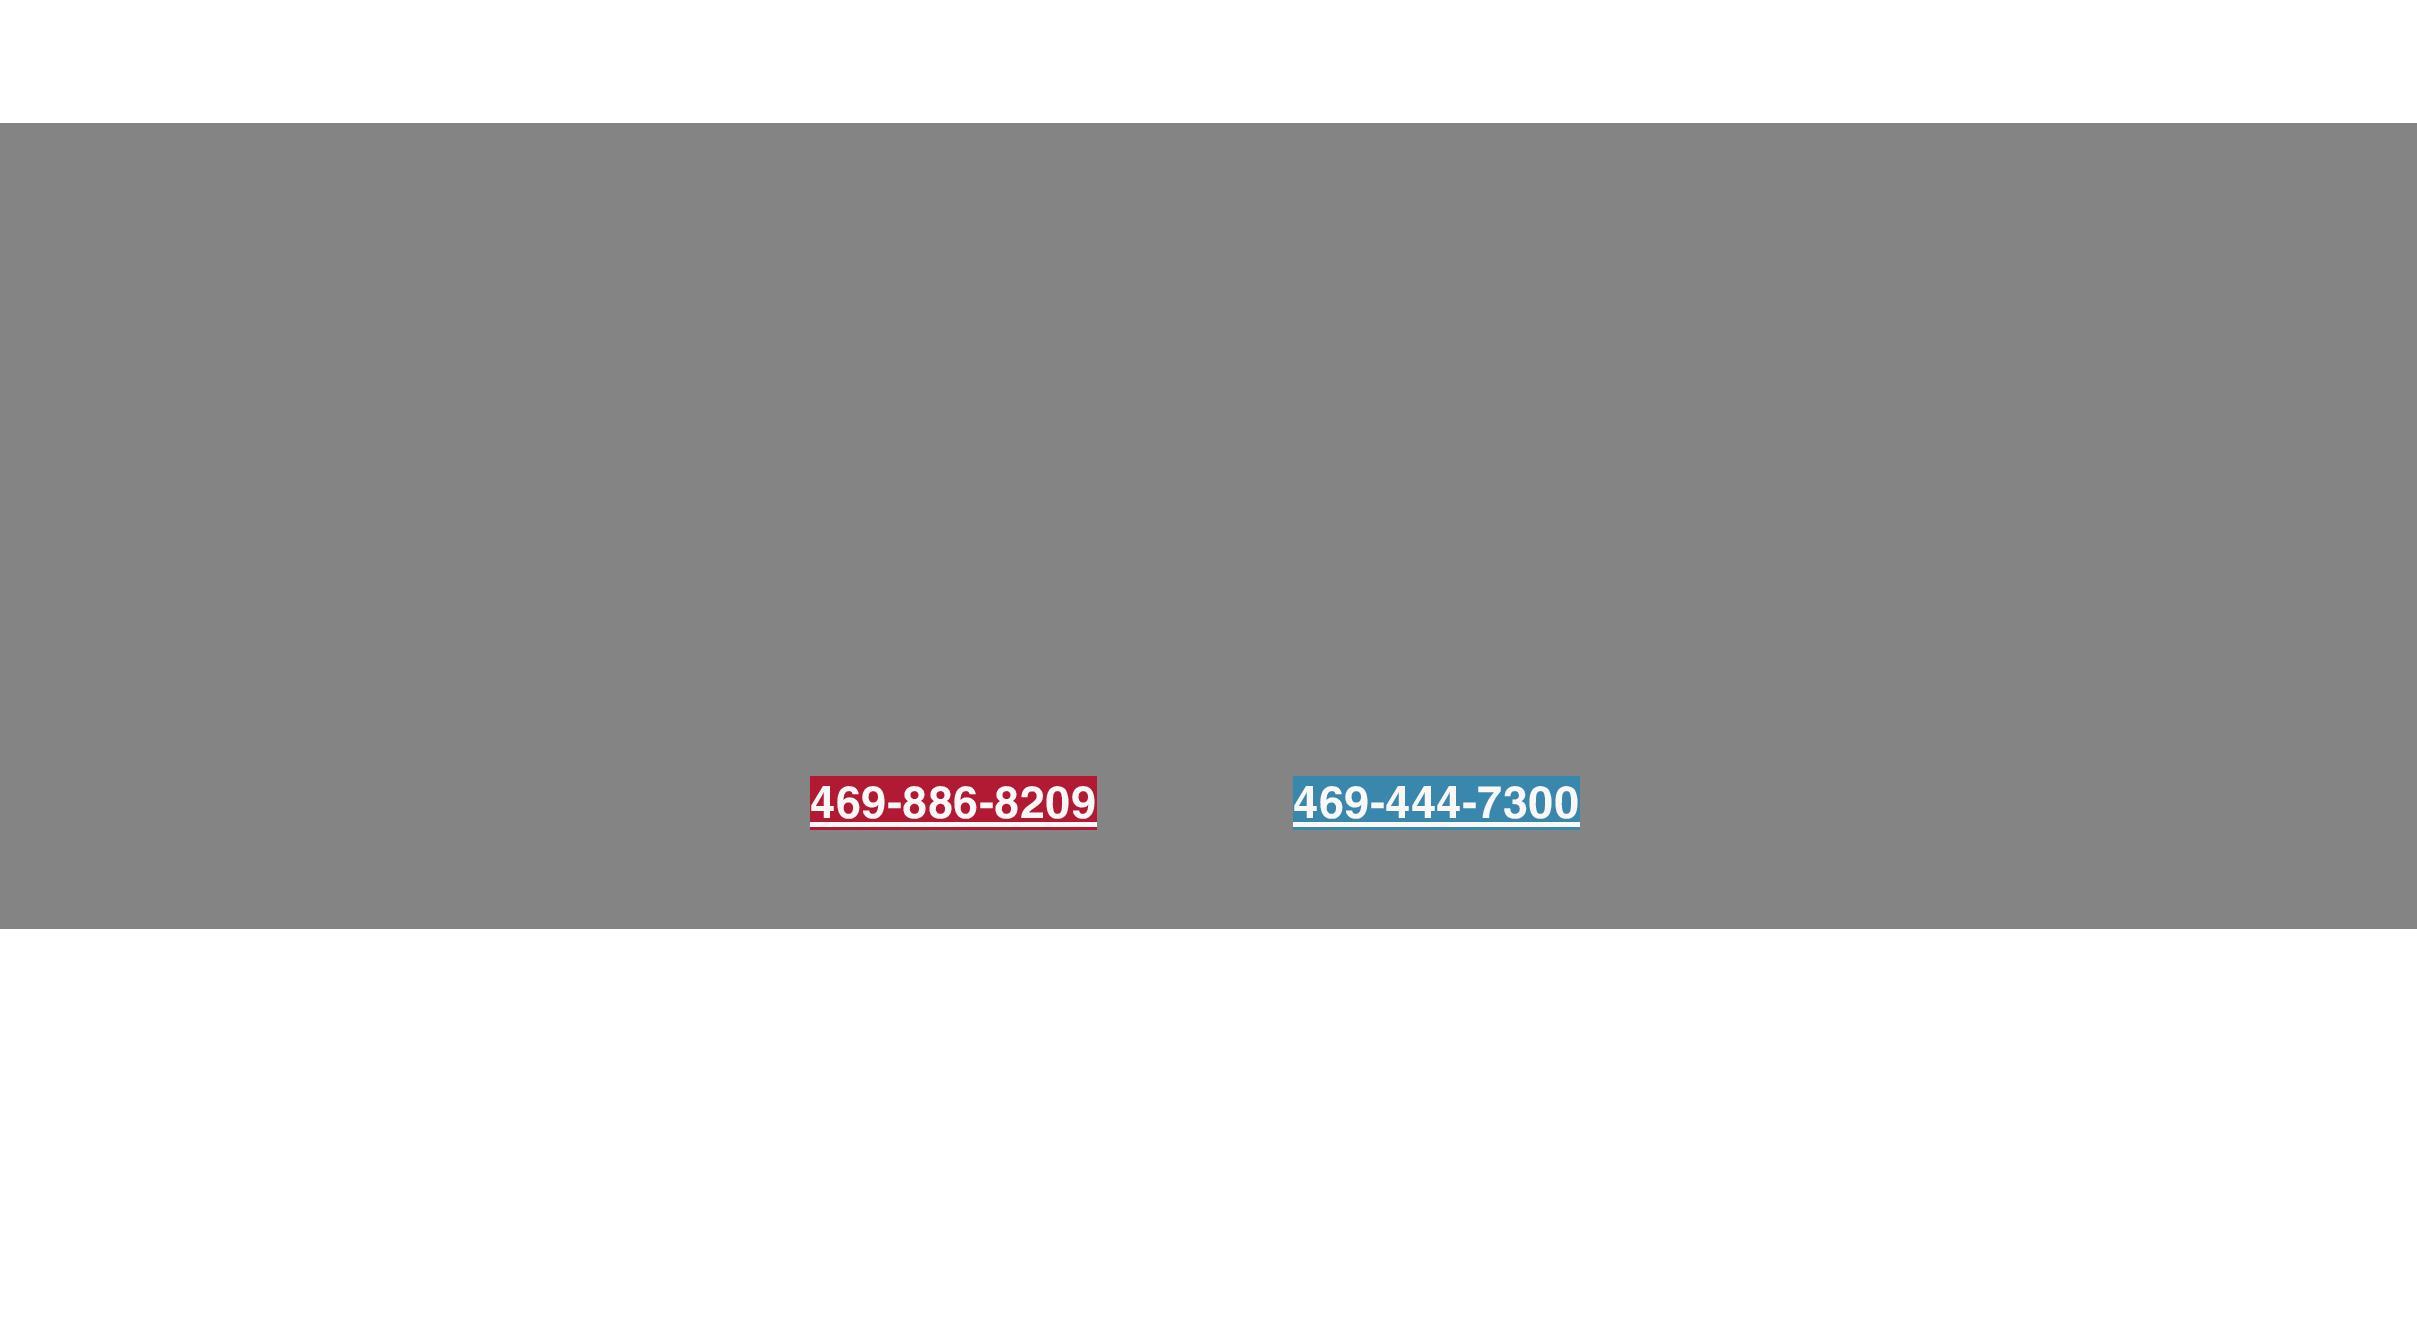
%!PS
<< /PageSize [2417 1317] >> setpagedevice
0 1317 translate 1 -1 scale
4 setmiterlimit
1 setgray
0 0 2417 1317 rectfill
0.522 0.518 0.518 setrgbcolor
0 123 2417 806 rectfill
0.698 0.102 0.204 setrgbcolor
810 776 287 54 rectfill
/helvetica-Bold [45 0 0 -45 0 0] selectfont
0.976 0.973 0.965 setrgbcolor
810 818 moveto 0.5 0 (469-886-8209) ashow
810 822 287 5 rectfill
0.227 0.529 0.678 setrgbcolor
1293 776 287 54 rectfill
0.976 0.973 0.965 setrgbcolor
1293 818 moveto 0.5 0 (469-444-7300) ashow
1293 822 287 5 rectfill
showpage
